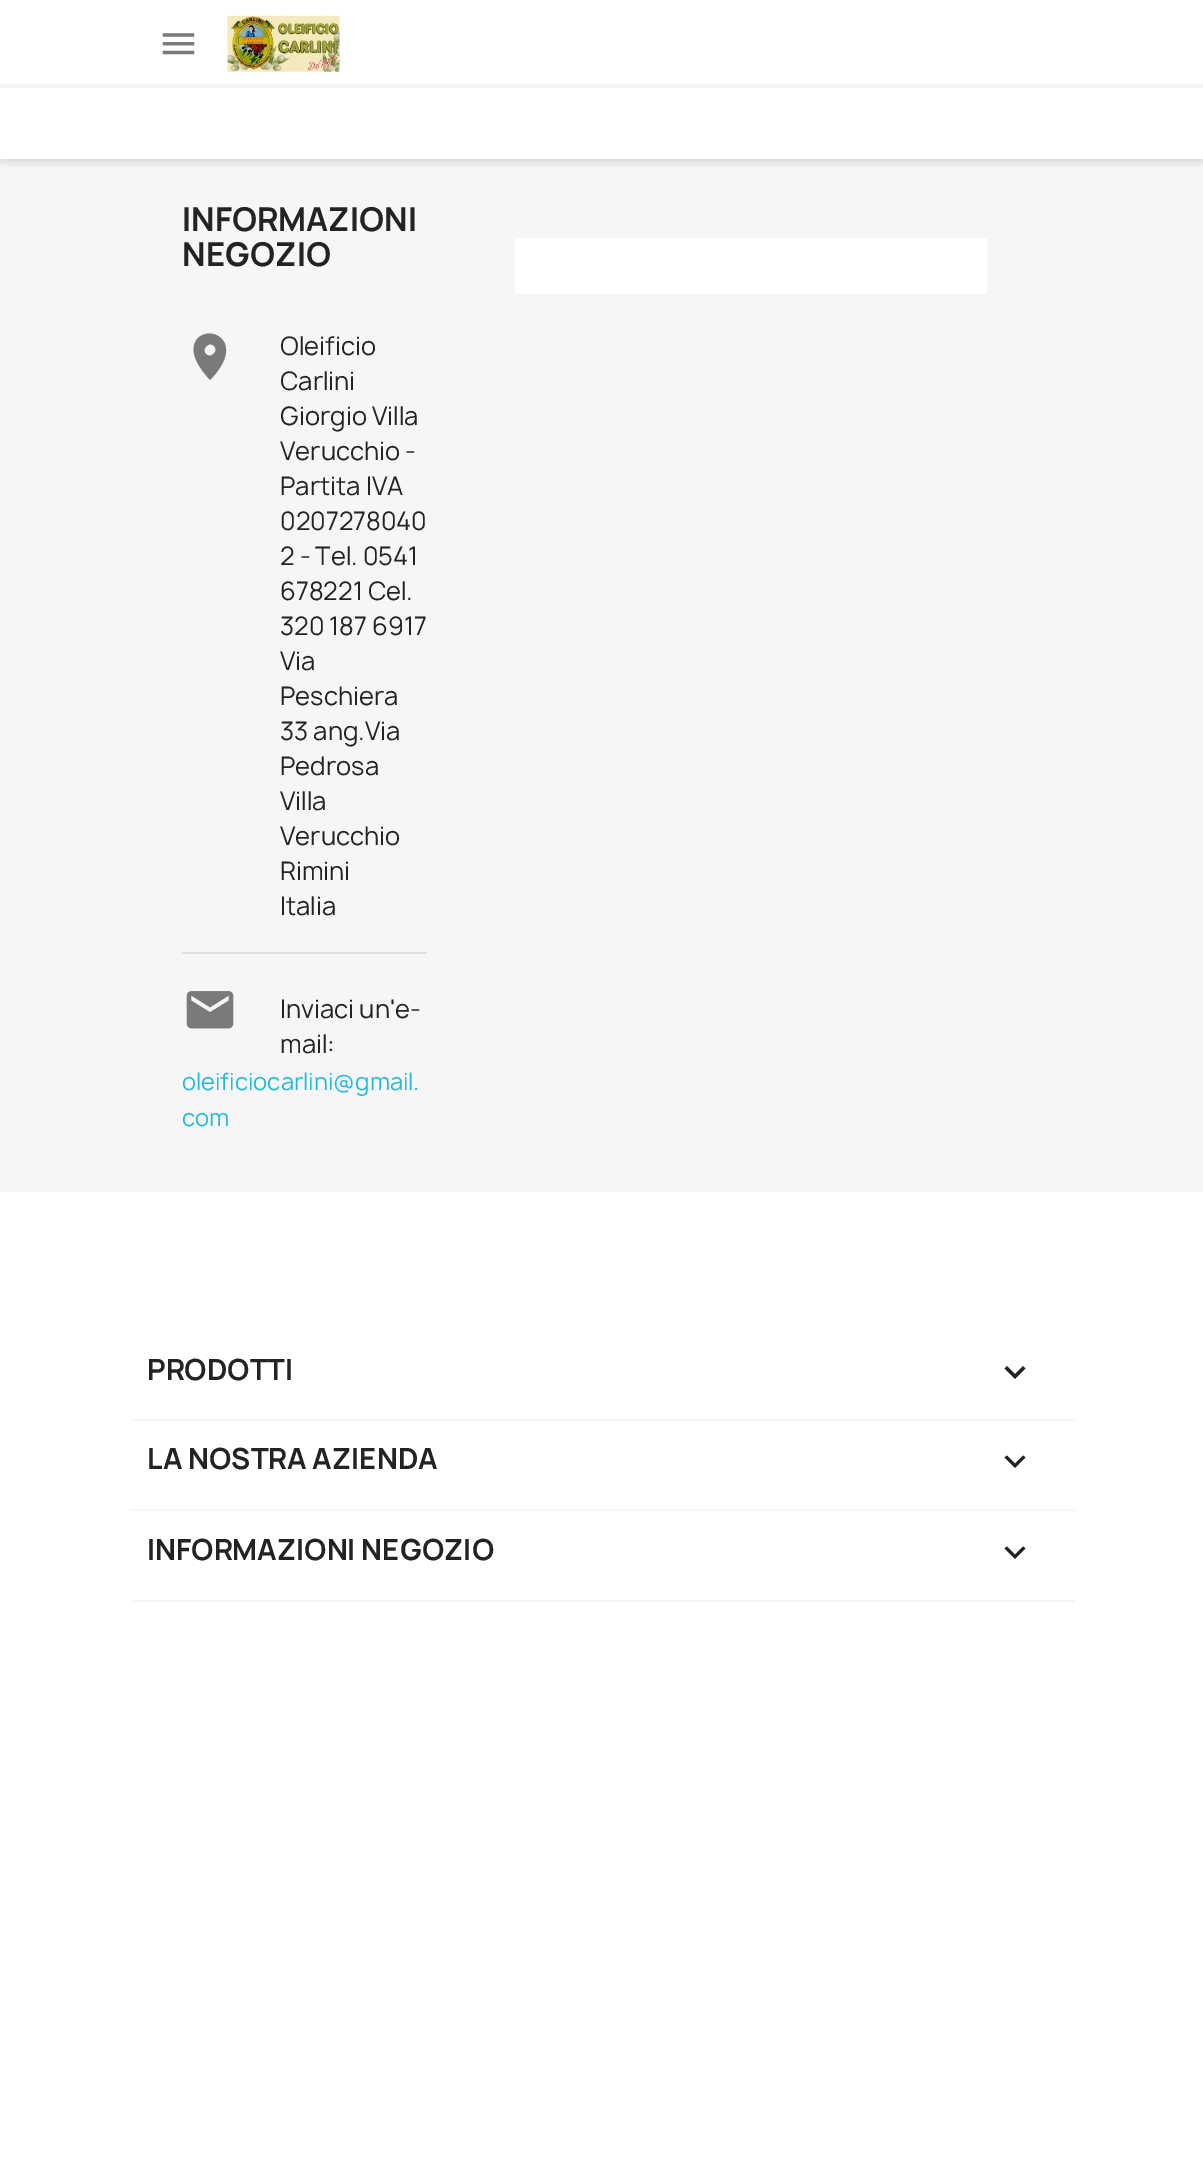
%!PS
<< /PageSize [1203 2180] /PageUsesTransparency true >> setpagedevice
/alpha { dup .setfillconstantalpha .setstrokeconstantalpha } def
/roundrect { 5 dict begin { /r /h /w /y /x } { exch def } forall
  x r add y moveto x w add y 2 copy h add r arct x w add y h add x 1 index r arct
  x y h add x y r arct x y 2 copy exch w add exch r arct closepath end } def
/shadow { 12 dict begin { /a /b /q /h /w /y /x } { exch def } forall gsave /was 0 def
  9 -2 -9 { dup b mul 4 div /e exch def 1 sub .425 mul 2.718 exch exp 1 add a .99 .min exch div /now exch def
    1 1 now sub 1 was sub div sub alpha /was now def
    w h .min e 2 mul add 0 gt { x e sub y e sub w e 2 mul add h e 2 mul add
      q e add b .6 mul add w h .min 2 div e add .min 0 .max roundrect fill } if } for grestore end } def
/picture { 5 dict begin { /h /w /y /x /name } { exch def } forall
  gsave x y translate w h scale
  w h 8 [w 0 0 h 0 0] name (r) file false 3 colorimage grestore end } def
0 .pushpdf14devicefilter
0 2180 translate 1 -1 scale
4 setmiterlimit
1 setgray
0 0 1203 2180 rectfill
0.965 setgray
0 159 1203 1033 rectfill
gsave
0 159 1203 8 rectclip
0 setgray
0 4 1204 159 0 4.5 0.11 shadow
grestore
0 84 1203 4 rectfill
(img1.rgb) 162 33 33 22 picture
(img2.rgb) 227 15 113 57 picture
/Manrope-Bold [31.5 0 0 -31.5 0 0] selectfont
0.137 setgray
182 231 moveto (INFORMAZIONI) show
182 266 moveto (NEGOZIO) show
0.478 setgray
newpath 206 354 moveto 211 359 219 351 214 346 curveto 209 341 201 349 206 354 curveto closepath 198 338 moveto 209 328 227 336 226 351 curveto 226 361 217 373 210 380 curveto 201 370 186 351 198 338 curveto closepath fill
/Manrope-Regular [24.5 0 0 -24.5 0 0] selectfont
0.137 setgray
280 355 moveto (Oleificio) show
280 390 moveto (Carlini) show
280 425 moveto (Giorgio Villa) show
280 460 moveto (Verucchio -) show
280 495 moveto (Partita IVA) show
280 530 moveto (0207278040) show
280 565 moveto (2 - Tel. 0541) show
280 600 moveto (678221 Cel.) show
280 635 moveto (320 187 6917) show
280 670 moveto (Via) show
280 705 moveto (Peschiera) show
280 740 moveto (33 ang.Via) show
280 775 moveto (Pedrosa) show
280 810 moveto (Villa) show
280 845 moveto (Verucchio) show
280 880 moveto (Rimini) show
280 915 moveto (Italia) show
0.867 setgray
182 952 245 2 rectfill
(img3.rgb) 186 991 48 38 picture
0.137 setgray
280 1018 moveto (Inviaci un'e-) show
280 1053 moveto (mail:) show
/Manrope-Regular [22.75 0 0 -22.75 0 0] selectfont
0.141 0.725 0.843 setrgbcolor
182 1090 moveto (oleificiocarlini@gmail.) show
182 1126 moveto (com) show
1 setgray
515 238 472 56 rectfill
0.965 setgray
130 1419 945 2 rectfill
/Manrope-Bold [28 0 0 -28 0 0] selectfont
0.137 setgray
147 1380 moveto (PRODOTTI) show
newpath 1007 1366 moveto 1015 1374 lineto 1023 1366 lineto 1025.5 1368.5 lineto 1015 1379 lineto 1004.5 1368.5 lineto closepath fill
0.965 setgray
130 1509 945 2 rectfill
0.137 setgray
147 1469 moveto (LA NOSTRA AZIENDA) show
newpath 1007 1455.5 moveto 1015 1463.5 lineto 1023 1455.5 lineto 1025.5 1457.5 lineto 1015 1468 lineto 1004.5 1457.5 lineto closepath fill
0.965 setgray
130 1600 945 2 rectfill
0.137 setgray
147 1560 moveto (INFORMAZIONI NEGOZIO) show
newpath 1007 1546.5 moveto 1015 1554.5 lineto 1023 1546.5 lineto 1025.5 1548.5 lineto 1015 1559 lineto 1004.5 1548.5 lineto closepath fill
.poppdf14devicefilter showpage
